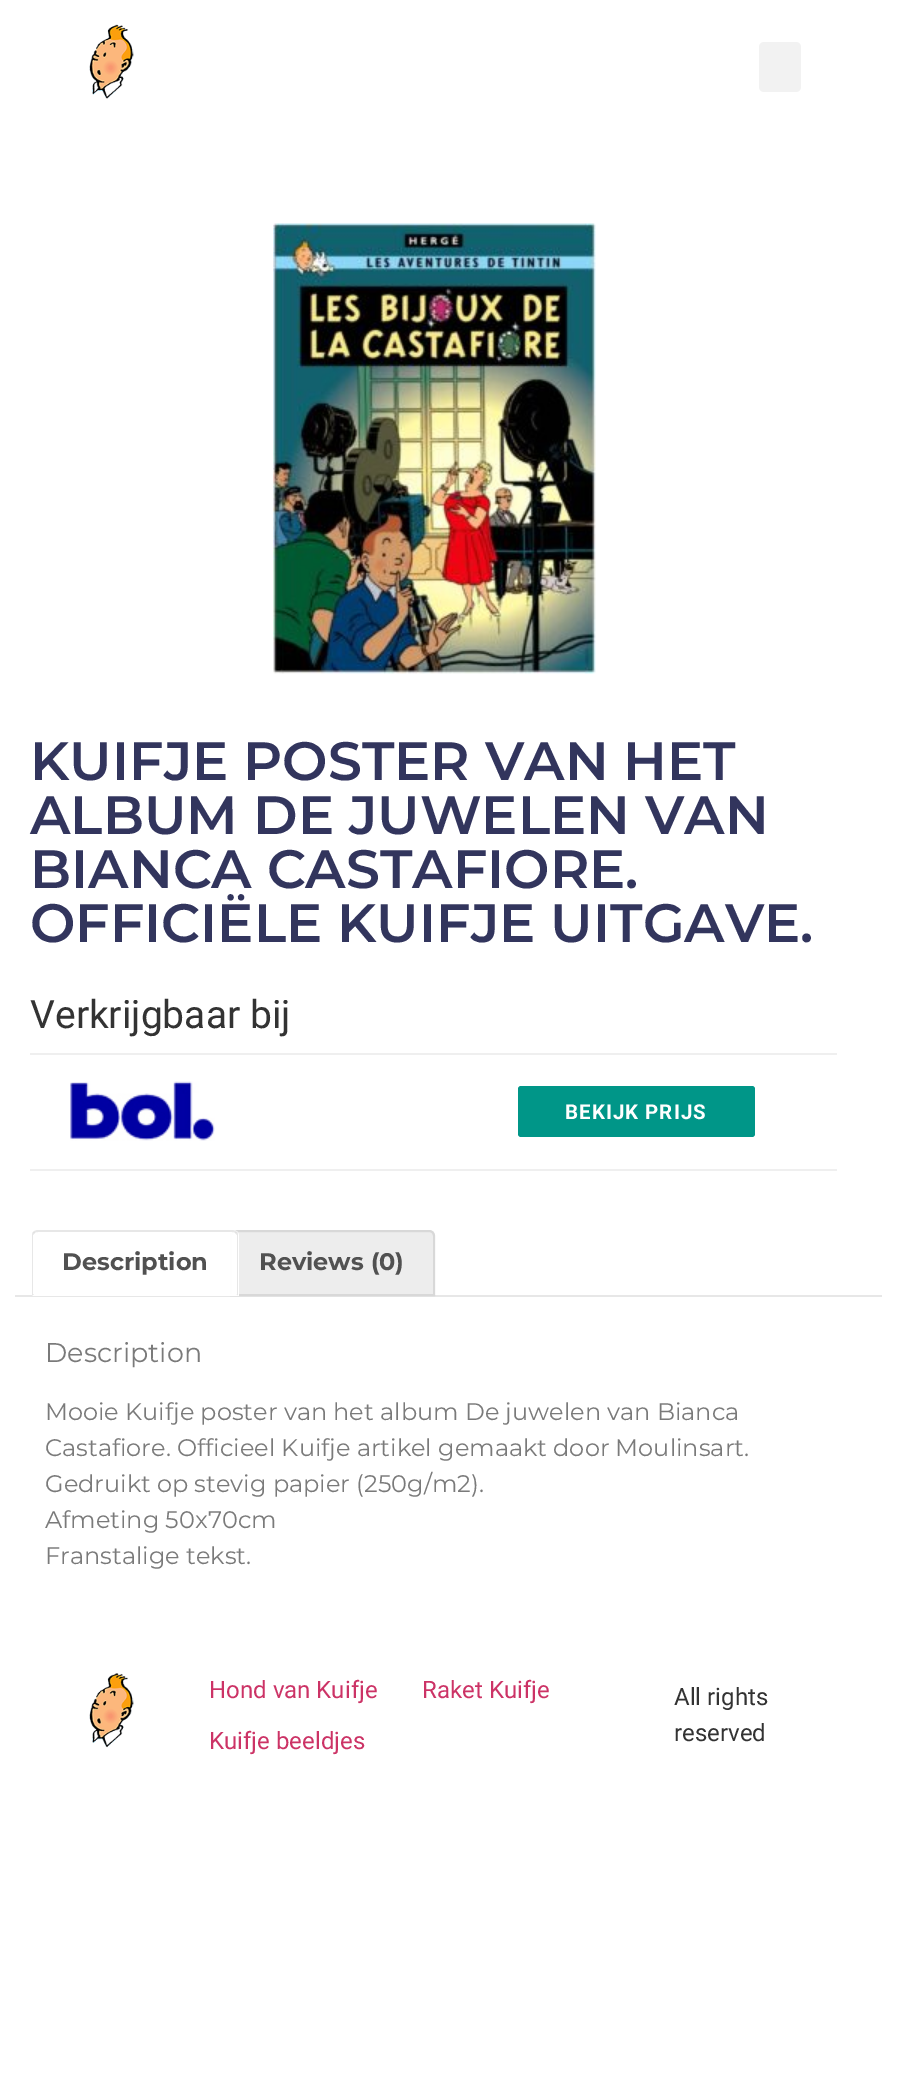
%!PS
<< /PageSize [897 2088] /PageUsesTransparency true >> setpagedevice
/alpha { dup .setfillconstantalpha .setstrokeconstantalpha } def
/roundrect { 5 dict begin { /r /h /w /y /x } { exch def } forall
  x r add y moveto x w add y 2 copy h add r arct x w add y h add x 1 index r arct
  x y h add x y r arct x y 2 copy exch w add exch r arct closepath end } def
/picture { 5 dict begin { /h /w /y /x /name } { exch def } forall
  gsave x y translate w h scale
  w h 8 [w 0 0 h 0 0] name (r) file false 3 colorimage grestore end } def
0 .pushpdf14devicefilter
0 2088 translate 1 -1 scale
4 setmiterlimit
1 setgray
0 0 897 2088 rectfill
(img1.rgb) 89 24 45 75 picture
0.949 setgray
759 42 42 50 5 roundrect fill
(img2.rgb) 273 223 323 451 picture
/Montserrat-SemiBold [54 0 0 -54 0 0] selectfont
0.196 0.208 0.365 setrgbcolor
30 780 moveto (KUIFJE POSTER VAN HET) show
30 834 moveto (ALBUM DE JUWELEN VAN) show
30 888 moveto (BIANCA CASTAFIORE.) show
30 942 moveto (OFFICIËLE KUIFJE UITGAVE.) show
/Roboto-Regular [39 0 0 -39 0 0] selectfont
0.2 setgray
30 1028 moveto (Verkrijgbaar bij) show
0.937 setgray
30 1053 807 2 rectfill
30 1169 807 2 rectfill
(img3.rgb) 70 1081 145 60 picture
0 0.588 0.533 setrgbcolor
518 1086 237 51 3 roundrect fill
/Roboto-Bold [20.5 0 0 -20.5 0 0] selectfont
1 setgray
565 1119 moveto 1 0 (BEKIJK PRIJS) ashow
0.906 setgray
15 1295 867 2 rectfill
0.929 setgray
newpath 236 1230 moveto 429 1230 lineto 432.5 1230 435 1232.5 435 1236 curveto 435 1296 lineto 230 1296 lineto 230 1236 lineto 230 1232.5 232.5 1230 236 1230 curveto closepath fill
0.18 alpha
0.478 setgray
2 setlinewidth
newpath 236 1231 moveto 429 1231 lineto 432 1231 434 1233 434 1236 curveto 434 1295 lineto 231 1295 lineto 231 1236 lineto 231 1233 233 1231 236 1231 curveto closepath stroke
0.98 alpha
1 setgray
newpath 38 1230 moveto 233 1230 lineto 236.5 1230 239 1232.5 239 1236 curveto 239 1296 lineto 32 1296 lineto 32 1236 lineto 32 1232.5 34.5 1230 38 1230 curveto closepath fill
1 alpha
0.906 setgray
newpath 38 1230 moveto 36 1230 34 1231 33 1232 curveto 35 1233 lineto 35 1232 37 1232 38 1232 curveto 232 1232 lineto 233 1232 235 1232 235 1233 curveto 237 1232 lineto 236 1231 234 1230 232 1230 curveto closepath fill
0.18 alpha
0.478 setgray
newpath 237 1232 moveto 238 1233 238 1235 238 1236 curveto 238 1296 lineto 236 1294 lineto 237 1294 lineto 237 1235 lineto 235 1233 lineto closepath fill
0.98 alpha
1 setgray
newpath 32 1296 moveto 238 1296 lineto 236 1294 lineto 34 1294 lineto closepath fill
0.18 alpha
0.478 setgray
newpath 33 1232 moveto 32 1233 32 1235 32 1236 curveto 32 1296 lineto 34 1294 lineto 33 1294 lineto 33 1235 lineto 35 1233 lineto closepath fill
/Montserrat-Bold [24 0 0 -24 0 0] selectfont
1 alpha
0.318 setgray
62 1270 moveto (Description) show
259 1270 moveto (Reviews \(0\)) show
/Montserrat-Regular [27 0 0 -27 0 0] selectfont
0.478 setgray
45 1362 moveto (Description) show
/Montserrat-Regular [24 0 0 -24 0 0] selectfont
45 1420 moveto (Mooie Kuifje poster van het album De juwelen van Bianca) show
45 1456 moveto (Castafiore. Officieel Kuifje artikel gemaakt door Moulinsart.) show
45 1492 moveto (Gedruikt op stevig papier \(250g/m2\).) show
45 1528 moveto (Afmeting 50x70cm) show
45 1564 moveto (Franstalige tekst.) show
(img4.rgb) 89 1673 45 75 picture
/Roboto-Regular [24 0 0 -24 0 0] selectfont
0.8 0.2 0.4 setrgbcolor
209 1698 moveto (Hond van Kuifje) show
422 1698 moveto (Raket Kuifje) show
209 1749 moveto (Kuifje beeldjes) show
0.2 setgray
674 1705 moveto (All rights) show
674 1741 moveto (reserved) show
.poppdf14devicefilter showpage
